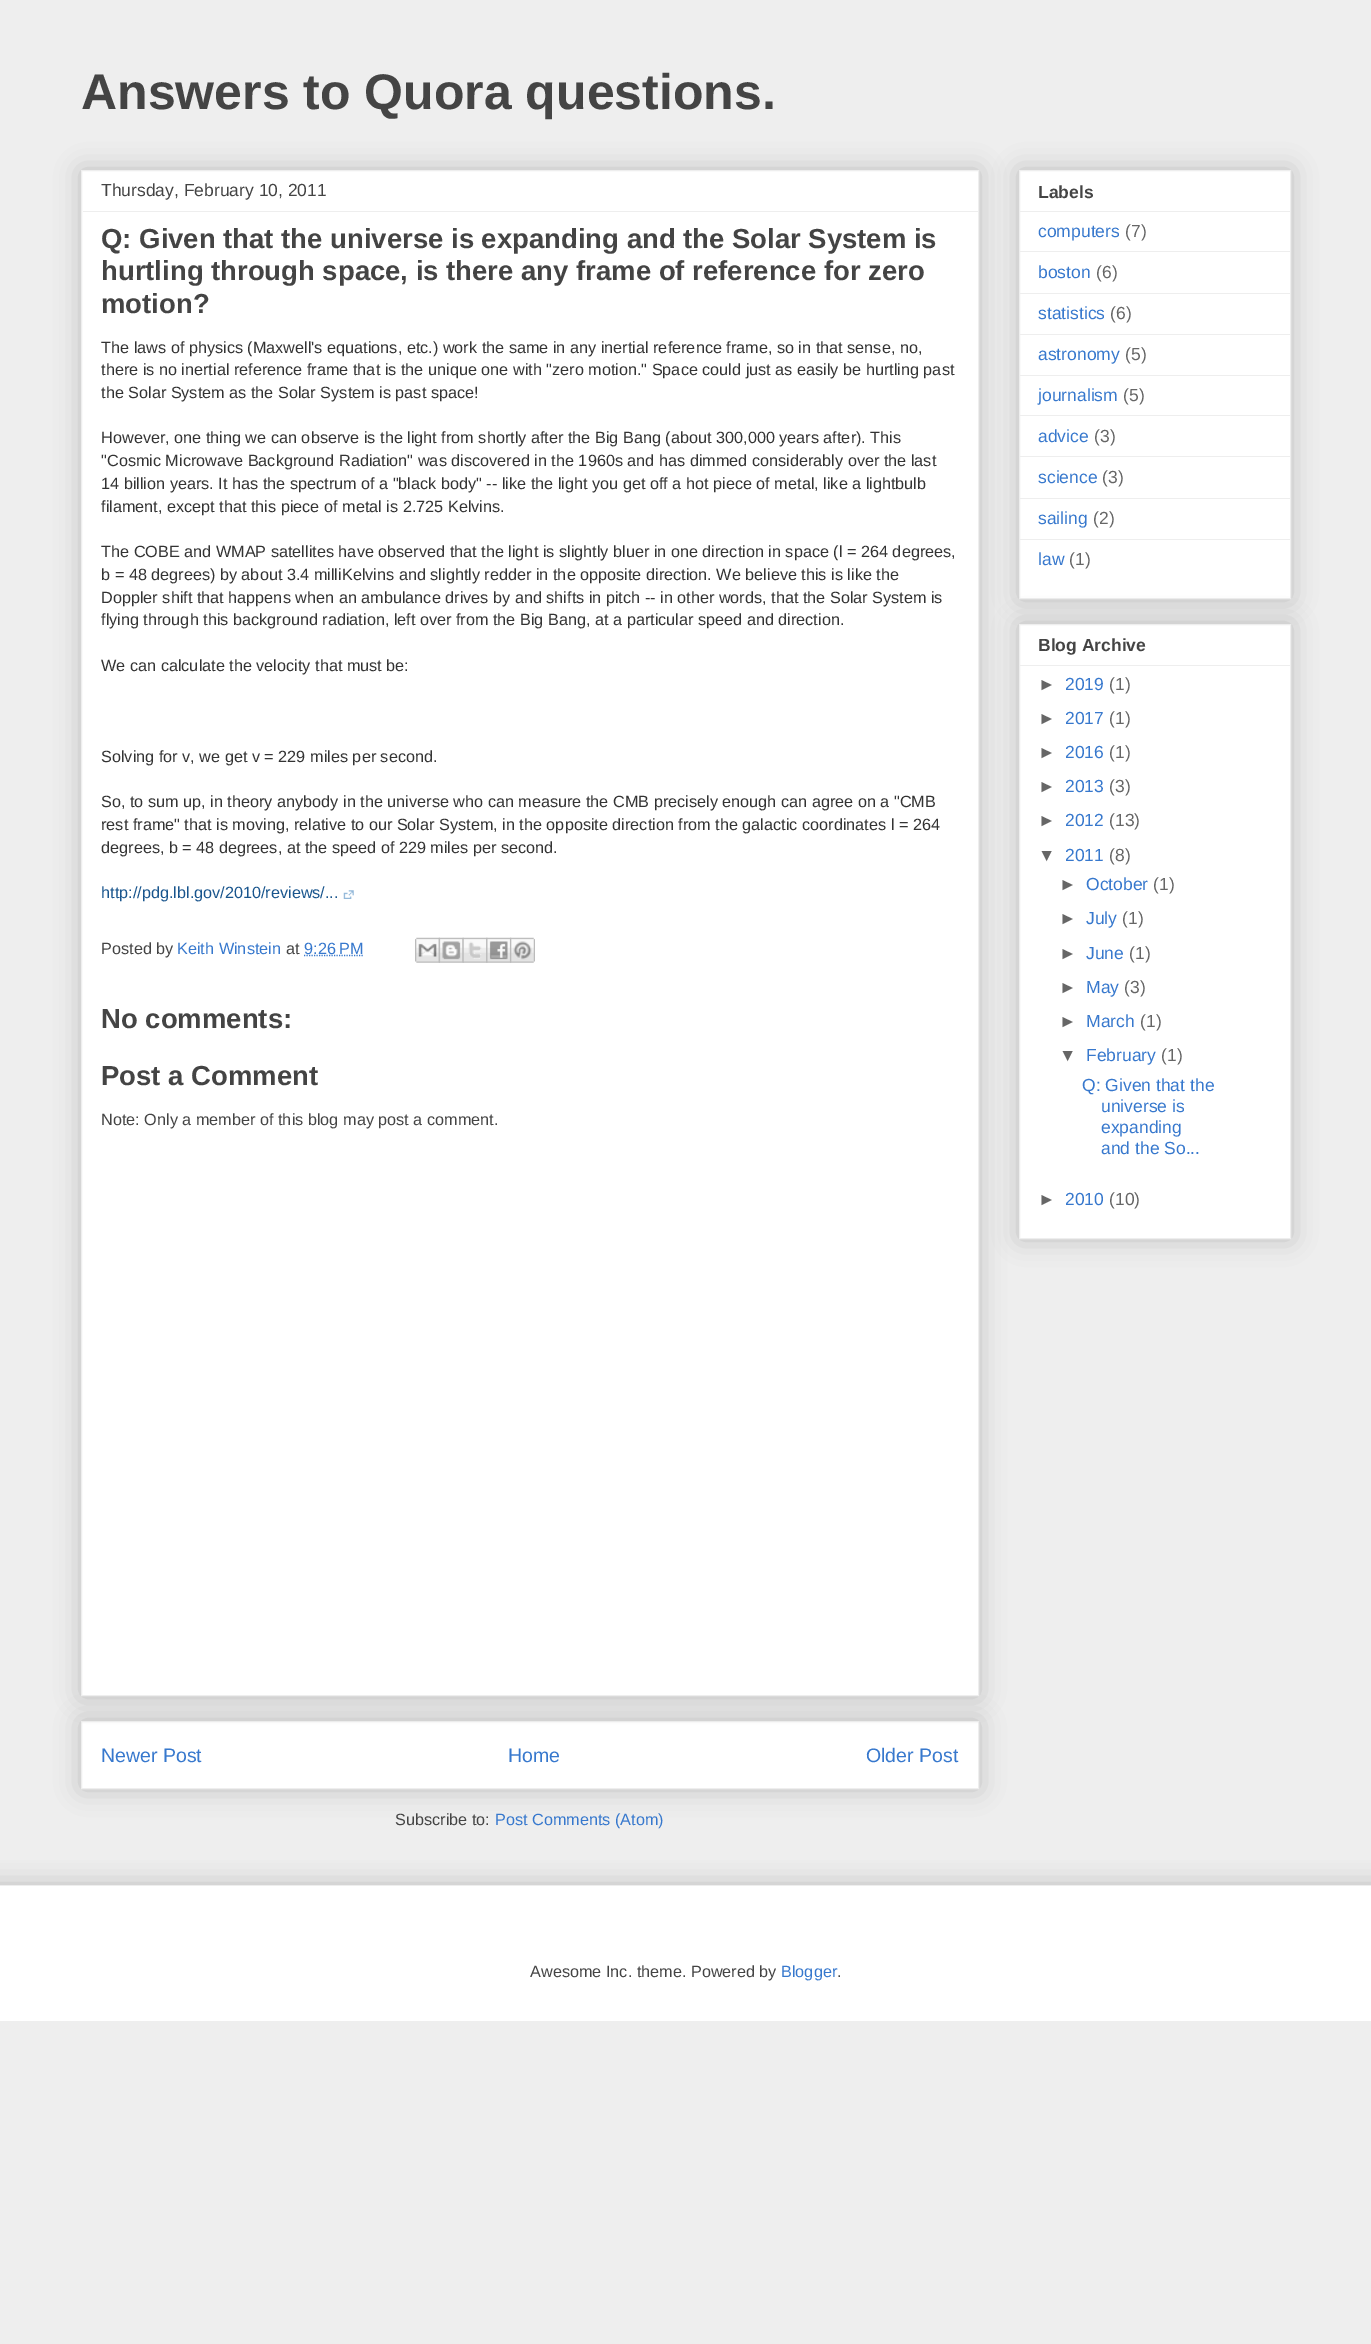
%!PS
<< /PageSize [1371 2344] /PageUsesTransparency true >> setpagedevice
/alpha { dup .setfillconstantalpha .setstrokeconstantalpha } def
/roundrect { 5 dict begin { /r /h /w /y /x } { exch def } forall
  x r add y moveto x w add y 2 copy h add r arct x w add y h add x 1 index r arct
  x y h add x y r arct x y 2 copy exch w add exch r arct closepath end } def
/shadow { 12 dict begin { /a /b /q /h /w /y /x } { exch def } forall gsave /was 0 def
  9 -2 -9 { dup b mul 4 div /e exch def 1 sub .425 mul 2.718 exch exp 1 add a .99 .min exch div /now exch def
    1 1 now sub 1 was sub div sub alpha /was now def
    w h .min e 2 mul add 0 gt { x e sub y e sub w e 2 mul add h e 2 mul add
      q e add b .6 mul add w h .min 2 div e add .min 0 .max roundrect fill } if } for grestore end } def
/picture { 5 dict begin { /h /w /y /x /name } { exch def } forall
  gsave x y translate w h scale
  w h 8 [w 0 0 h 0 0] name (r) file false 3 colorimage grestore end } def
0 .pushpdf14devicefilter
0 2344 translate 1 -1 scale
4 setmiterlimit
0.933 setgray
0 0 1371 2344 rectfill
/LiberationSans-Bold [50 0 0 -50 0 0] selectfont
0.267 setgray
81 109 moveto (Answers to Quora questions.) show
0 setgray
81 1721 898 68 0 12.5 0.2 shadow
1 setgray
newpath 81.5 1721.5 moveto 978.5 1721.5 lineto 978.5 1788.5 lineto 81.5 1788.5 lineto closepath gsave fill grestore
0.933 setgray
stroke
0 setgray
81 170 898 1526 0 12.5 0.2 shadow
1 setgray
newpath 81.5 170.5 moveto 978.5 170.5 lineto 978.5 1695.5 lineto 81.5 1695.5 lineto closepath gsave fill grestore
0.933 setgray
stroke
/LiberationSans-Regular [17.5 0 0 -17.5 0 0] selectfont
0.267 setgray
101 196 moveto (Thursday, February 10, 2011) show
0.933 setgray
83 211 895 1 rectfill
/LiberationSans-Bold [27.5 0 0 -27.5 0 0] selectfont
0.267 setgray
101 248 moveto (Q: Given that the universe is expanding and the Solar System is) show
101 280 moveto (hurtling through space, is there any frame of reference for zero) show
101 313 moveto (motion?) show
/LiberationSans-Regular [16.25 0 0 -16.25 0 0] selectfont
0.2 setgray
101 353 moveto (The laws of physics \(Maxwell's equations, etc.\) work the same in any inertial reference frame, so in that sense, no,) show
101 375 moveto (there is no inertial reference frame that is the unique one with "zero motion." Space could just as easily be hurtling past) show
101 398 moveto (the Solar System as the Solar System is past space!) show
101 443 moveto (However, one thing we can observe is the light from shortly after the Big Bang \(about 300,000 years after\). This) show
101 466 moveto ("Cosmic Microwave Background Radiation" was discovered in the 1960s and has dimmed considerably over the last) show
101 489 moveto (14 billion years. It has the spectrum of a "black body" -- like the light you get off a hot piece of metal, like a lightbulb) show
101 512 moveto (filament, except that this piece of metal is 2.725 Kelvins.) show
101 557 moveto (The COBE and WMAP satellites have observed that the light is slightly bluer in one direction in space \(l = 264 degrees,) show
101 580 moveto (b = 48 degrees\) by about 3.4 milliKelvins and slightly redder in the opposite direction. We believe this is like the) show
101 603 moveto (Doppler shift that happens when an ambulance drives by and shifts in pitch -- in other words, that the Solar System is) show
101 625 moveto (flying through this background radiation, left over from the Big Bang, at a particular speed and direction.) show
101 671 moveto (We can calculate the velocity that must be:) show
101 762 moveto (Solving for v, we get v = 229 miles per second.) show
101 807 moveto (So, to sum up, in theory anybody in the universe who can measure the CMB precisely enough can agree on a "CMB) show
101 830 moveto (rest frame" that is moving, relative to our Solar System, in the opposite direction from the galactic coordinates l = 264) show
101 853 moveto (degrees, b = 48 degrees, at the speed of 229 miles per second.) show
0.098 0.333 0.553 setrgbcolor
101 898 moveto (http://pdg.lbl.gov/2010/reviews/...) show
(img1.rgb) 343 890 11 9 picture
0.267 setgray
101 954 moveto (Posted by) show
0.216 0.471 0.804 setrgbcolor
177 954 moveto (Keith Winstein) show
0.267 setgray
286 954 moveto (at) show
0.216 0.471 0.804 setrgbcolor
1.2 setlinewidth
[1.25 1.25] 0 setdash
newpath 304 955.5 moveto 363 955.5 lineto stroke
304 954 moveto (9:26 PM) show
(img2.rgb) 415 937 25 26 picture
(img3.rgb) 438 937 26 26 picture
(img4.rgb) 462 937 26 26 picture
(img5.rgb) 486 937 26 26 picture
(img6.rgb) 510 937 25 26 picture
/LiberationSans-Bold [27.5 0 0 -27.5 0 0] selectfont
0.267 setgray
101 1028 moveto (No comments:) show
101 1085 moveto (Post a Comment) show
/LiberationSans-Regular [16.25 0 0 -16.25 0 0] selectfont
101 1125 moveto (Note: Only a member of this blog may post a comment.) show
/LiberationSans-Regular [19.5 0 0 -19.5 0 0] selectfont
0.216 0.471 0.804 setrgbcolor
101 1762 moveto (Newer Post) show
508 1762 moveto (Home) show
866 1762 moveto (Older Post) show
/LiberationSans-Regular [16.25 0 0 -16.25 0 0] selectfont
0.267 setgray
395 1825 moveto (Subscribe to:) show
0.216 0.471 0.804 setrgbcolor
495 1825 moveto (Post Comments \(Atom\)) show
0 setgray
1019 170 272 429 0 12.5 0.2 shadow
1 setgray
newpath 1019.5 170.5 moveto 1290.5 170.5 lineto 1290.5 598.5 lineto 1019.5 598.5 lineto closepath gsave fill grestore
0.933 setgray
1 setlinewidth
[] 0 setdash
stroke
/LiberationSans-Bold [17.5 0 0 -17.5 0 0] selectfont
0.267 setgray
1038 198 moveto (Labels) show
0.933 setgray
1020 211 270 1 rectfill
/LiberationSans-Regular [17.5 0 0 -17.5 0 0] selectfont
0.216 0.471 0.804 setrgbcolor
1038 237 moveto (computers) show
0.4 setgray
1125 237 moveto (\(7\)) show
0.933 setgray
1020 251 270 1 rectfill
0.216 0.471 0.804 setrgbcolor
1038 278 moveto (boston) show
0.4 setgray
1096 278 moveto (\(6\)) show
0.933 setgray
1020 293 270 1 rectfill
0.216 0.471 0.804 setrgbcolor
1038 319 moveto (statistics) show
0.4 setgray
1110 319 moveto (\(6\)) show
0.933 setgray
1020 334 270 1 rectfill
0.216 0.471 0.804 setrgbcolor
1038 360 moveto (astronomy) show
0.4 setgray
1125 360 moveto (\(5\)) show
0.933 setgray
1020 375 270 1 rectfill
0.216 0.471 0.804 setrgbcolor
1038 401 moveto (journalism) show
0.4 setgray
1123 401 moveto (\(5\)) show
0.933 setgray
1020 415 270 1 rectfill
0.216 0.471 0.804 setrgbcolor
1038 442 moveto (advice) show
0.4 setgray
1094 442 moveto (\(3\)) show
0.933 setgray
1020 456 270 1 rectfill
0.216 0.471 0.804 setrgbcolor
1038 483 moveto (science) show
0.4 setgray
1102 483 moveto (\(3\)) show
0.933 setgray
1020 498 270 1 rectfill
0.216 0.471 0.804 setrgbcolor
1038 524 moveto (sailing) show
0.4 setgray
1093 524 moveto (\(2\)) show
0.933 setgray
1020 539 270 1 rectfill
0.216 0.471 0.804 setrgbcolor
1038 565 moveto (law) show
0.4 setgray
1069 565 moveto (\(1\)) show
0 setgray
1019 624 272 615 0 12.5 0.2 shadow
1 setgray
newpath 1019.5 624.5 moveto 1290.5 624.5 lineto 1290.5 1238.5 lineto 1019.5 1238.5 lineto closepath gsave fill grestore
0.933 setgray
stroke
/LiberationSans-Bold [17.5 0 0 -17.5 0 0] selectfont
0.267 setgray
1038 651 moveto (Blog Archive) show
0.933 setgray
1020 665 270 1 rectfill
/LiberationSans-Regular [17.5 0 0 -17.5 0 0] selectfont
0.4 setgray
1038 690 moveto (►) show
0.216 0.471 0.804 setrgbcolor
1065 690 moveto (2019) show
0.4 setgray
1109 690 moveto (\(1\)) show
1038 724 moveto (►) show
0.216 0.471 0.804 setrgbcolor
1065 724 moveto (2017) show
0.4 setgray
1109 724 moveto (\(1\)) show
1038 758 moveto (►) show
0.216 0.471 0.804 setrgbcolor
1065 758 moveto (2016) show
0.4 setgray
1109 758 moveto (\(1\)) show
1038 792 moveto (►) show
0.216 0.471 0.804 setrgbcolor
1065 792 moveto (2013) show
0.4 setgray
1109 792 moveto (\(3\)) show
1038 826 moveto (►) show
0.216 0.471 0.804 setrgbcolor
1065 826 moveto (2012) show
0.4 setgray
1109 826 moveto (\(13\)) show
1038 861 moveto (▼) show
0.216 0.471 0.804 setrgbcolor
1065 861 moveto (2011) show
0.4 setgray
1109 861 moveto (\(8\)) show
1059 890 moveto (►) show
0.216 0.471 0.804 setrgbcolor
1086 890 moveto (October) show
0.4 setgray
1153 890 moveto (\(1\)) show
1059 924 moveto (►) show
0.216 0.471 0.804 setrgbcolor
1086 924 moveto (July) show
0.4 setgray
1122 924 moveto (\(1\)) show
1059 959 moveto (►) show
0.216 0.471 0.804 setrgbcolor
1086 959 moveto (June) show
0.4 setgray
1129 959 moveto (\(1\)) show
1059 993 moveto (►) show
0.216 0.471 0.804 setrgbcolor
1086 993 moveto (May) show
0.4 setgray
1124 993 moveto (\(3\)) show
1059 1027 moveto (►) show
0.216 0.471 0.804 setrgbcolor
1086 1027 moveto (March) show
0.4 setgray
1140 1027 moveto (\(1\)) show
1059 1061 moveto (▼) show
0.216 0.471 0.804 setrgbcolor
1086 1061 moveto (February) show
0.4 setgray
1161 1061 moveto (\(1\)) show
0.216 0.471 0.804 setrgbcolor
1082 1091 moveto (Q: Given that the) show
1101 1112 moveto (universe is) show
1101 1133 moveto (expanding) show
1101 1154 moveto (and the So...) show
0.4 setgray
1038 1205 moveto (►) show
0.216 0.471 0.804 setrgbcolor
1065 1205 moveto (2010) show
0.4 setgray
1109 1205 moveto (\(10\)) show
gsave
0 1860 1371 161 rectclip
0 setgray
-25 1885 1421 136 0 12.5 0.2 shadow
grestore
1 setgray
0 1886 1371 135 rectfill
0.933 setgray
0 1885 1371 1 rectfill
/LiberationSans-Regular [16.25 0 0 -16.25 0 0] selectfont
0.267 setgray
530 1977 moveto (Awesome Inc. theme. Powered by) show
0.216 0.471 0.804 setrgbcolor
781 1977 moveto (Blogger) show
0.267 setgray
837 1977 moveto (.) show
.poppdf14devicefilter showpage
